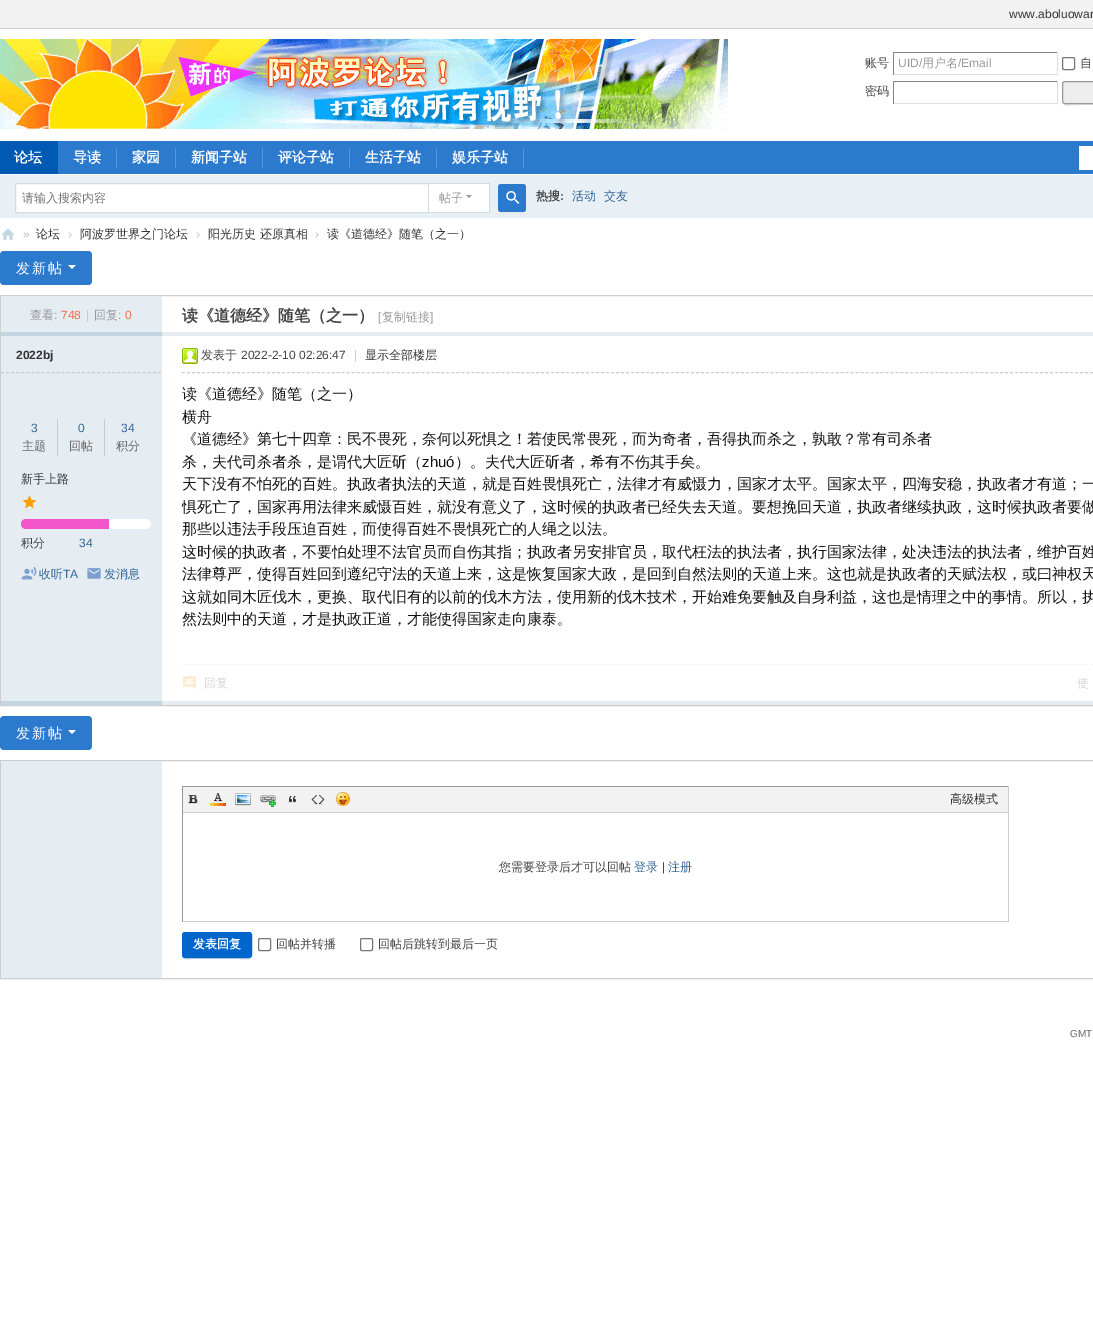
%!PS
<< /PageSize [1093 1342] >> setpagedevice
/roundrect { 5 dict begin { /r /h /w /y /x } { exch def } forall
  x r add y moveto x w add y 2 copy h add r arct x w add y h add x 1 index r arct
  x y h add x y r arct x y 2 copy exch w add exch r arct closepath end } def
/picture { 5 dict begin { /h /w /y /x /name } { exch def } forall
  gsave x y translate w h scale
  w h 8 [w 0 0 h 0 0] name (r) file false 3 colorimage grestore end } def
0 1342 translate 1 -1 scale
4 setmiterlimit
1 setgray
0 0 1093 1342 rectfill
0.949 setgray
0 0 1093 28 rectfill
0.804 setgray
0 28 1093 1 rectfill
/LiberationSans-Regular [12 0 0 -12 0 0] selectfont
0.2 setgray
1009 18 moveto (www.aboluowan) show
(img1.rgb) 0 39 728 90 picture
/WenQuanYiZenHei-Medium [12 0 0 -12 0 0] selectfont
0.267 setgray
865 67 moveto (账号) show
0.518 setgray
893 52 165 1 rectfill
0.878 setgray
1057 52 1 23 rectfill
893 74 165 1 rectfill
0.518 setgray
893 52 1 23 rectfill
/LiberationSans-Regular [12 0 0 -12 0 0] selectfont
0.6 setgray
898 67 moveto (UID/) show
/WenQuanYiZenHei-Medium [12 0 0 -12 0 0] selectfont
922 67 moveto (用户名) show
/LiberationSans-Regular [12 0 0 -12 0 0] selectfont
958 67 moveto (/Email) show
0.463 setgray
1062.5 57.5 12 12 1.5 roundrect stroke
/WenQuanYiZenHei-Medium [12 0 0 -12 0 0] selectfont
0.267 setgray
1080 67 moveto (自) show
865 95 moveto (密码) show
0.518 setgray
893 81 165 1 rectfill
0.878 setgray
1057 81 1 23 rectfill
893 103 165 1 rectfill
0.518 setgray
893 81 1 23 rectfill
0.898 setgray
newpath 1062 101 moveto 1062 108 1072 105 1076 105 curveto 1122 105 lineto 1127 105 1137 108 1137 101 curveto 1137 103 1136 104 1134 104 curveto 1065 104 lineto 1063 104 1062 103 1062 101 curveto closepath fill
0.933 setgray
1062.5 81.5 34 22 2.5 roundrect gsave fill grestore
0.6 setgray
stroke
0.169 0.478 0.804 setrgbcolor
58 141 1035 33 rectfill
0 0.353 0.706 setrgbcolor
0 141 58 33 rectfill
/WenQuanYiZenHei-Bold [14 0 0 -14 0 0] selectfont
1 setgray
14 162 moveto (论坛) show
0.333 0.584 0.843 setrgbcolor
116 148 1 20 rectfill
1 setgray
73 162 moveto (导读) show
0.333 0.584 0.843 setrgbcolor
175 148 1 20 rectfill
1 setgray
132 162 moveto (家园) show
0.333 0.584 0.843 setrgbcolor
262 148 1 20 rectfill
1 setgray
191 162 moveto (新闻子站) show
0.333 0.584 0.843 setrgbcolor
349 148 1 20 rectfill
1 setgray
278 162 moveto (评论子站) show
0.333 0.584 0.843 setrgbcolor
436 148 1 20 rectfill
1 setgray
365 162 moveto (生活子站) show
0.333 0.584 0.843 setrgbcolor
523 148 1 20 rectfill
1 setgray
452 162 moveto (娱乐子站) show
1079 146 14 24 rectfill
0.91 0.937 0.961 setrgbcolor
0 175 1093 43 rectfill
0.812 0.871 0.89 setrgbcolor
427 183 63 1 rectfill
489 183 1 30 rectfill
427 212 63 1 rectfill
1 setgray
newpath 15.5 183.5 moveto 428.5 183.5 lineto 428.5 212.5 lineto 15.5 212.5 lineto closepath gsave fill grestore
0.812 0.871 0.89 setrgbcolor
stroke
/WenQuanYiZenHei-Medium [12 0 0 -12 0 0] selectfont
0.459 setgray
22 202 moveto (请输入搜索内容) show
1 setgray
429 184 60 28 rectfill
0.6 setgray
439 202 moveto (帖子) show
newpath 466 195 moveto 472 195 lineto 469 198 lineto closepath fill
0.898 setgray
newpath 498 209 moveto 498 213.5 501 213 504.5 213 curveto 519.5 213 lineto 523 213 526 213.5 526 209 curveto 526 210.5 524.5 212 523 212 curveto 501 212 lineto 499.5 212 498 210.5 498 209 curveto closepath fill
0.169 0.478 0.804 setrgbcolor
498 184 28 28 3 roundrect fill
(img2.rgb) 506 191 14 13 picture
/WenQuanYiZenHei-Bold [12 0 0 -12 0 0] selectfont
0.267 setgray
536 200 moveto (热搜) show
/LiberationSans-Bold [12 0 0 -12 0 0] selectfont
560 200 moveto (:) show
/WenQuanYiZenHei-Medium [12 0 0 -12 0 0] selectfont
0.2 0.4 0.6 setrgbcolor
572 200 moveto (活动) show
604 200 moveto (交友) show
(img3.rgb) 1 228 14 12 picture
/LiberationSans-Regular [12 0 0 -12 0 0] selectfont
0.741 setgray
23 238 moveto (») show
/WenQuanYiZenHei-Medium [12 0 0 -12 0 0] selectfont
0.2 setgray
36 238 moveto (论坛) show
/LiberationSans-Regular [12 0 0 -12 0 0] selectfont
0.741 setgray
68 238 moveto (›) show
/WenQuanYiZenHei-Medium [12 0 0 -12 0 0] selectfont
0.2 setgray
80 238 moveto (阿波罗世界之门论坛) show
/LiberationSans-Regular [12 0 0 -12 0 0] selectfont
0.741 setgray
196 238 moveto (›) show
/WenQuanYiZenHei-Medium [12 0 0 -12 0 0] selectfont
0.2 setgray
208 238 moveto (阳光历史 还原真相) show
/LiberationSans-Regular [12 0 0 -12 0 0] selectfont
0.741 setgray
315 238 moveto (›) show
/WenQuanYiZenHei-Medium [12 0 0 -12 0 0] selectfont
0.2 setgray
327 238 moveto (读《道德经》随笔（之一）) show
0.169 0.478 0.804 setrgbcolor
0 251 92 34 4 roundrect fill
/WenQuanYiZenHei-Medium [14 0 0 -14 0 0] selectfont
1 setgray
16 273 moveto 2 0 (发新帖) ashow
newpath 68 265 moveto 76 265 lineto 72 269 lineto closepath fill
0.804 setgray
0.5 295.5 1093 410 rectstroke
0.898 0.929 0.949 setrgbcolor
1 296 161 36 rectfill
/WenQuanYiZenHei-Medium [12 0 0 -12 0 0] selectfont
0.6 setgray
30 319 moveto (查看) show
/LiberationSans-Regular [12 0 0 -12 0 0] selectfont
54 319 moveto (:) show
0.949 0.424 0.31 setrgbcolor
61 319 moveto (748) show
0.8 setgray
86 319 moveto (|) show
/WenQuanYiZenHei-Medium [12 0 0 -12 0 0] selectfont
0.6 setgray
94 319 moveto (回复) show
/LiberationSans-Regular [12 0 0 -12 0 0] selectfont
118 319 moveto (:) show
0.949 0.424 0.31 setrgbcolor
125 319 moveto (0) show
/WenQuanYiZenHei-Bold [16 0 0 -16 0 0] selectfont
0.267 setgray
182 321 moveto (读《道德经》随笔（之一）) show
/LiberationSans-Regular [12 0 0 -12 0 0] selectfont
0.6 setgray
378 321 moveto ([) show
/WenQuanYiZenHei-Medium [12 0 0 -12 0 0] selectfont
382 321 moveto (复制链接) show
/LiberationSans-Regular [12 0 0 -12 0 0] selectfont
430 321 moveto (]) show
0.761 0.835 0.89 setrgbcolor
1 332 161 4 rectfill
0.898 0.929 0.949 setrgbcolor
162 332 931 4 rectfill
1 336 161 365 rectfill
0.804 setgray
[3 2.06] 0 setdash
newpath 1 372.5 moveto 161 372.5 lineto stroke
/LiberationSans-Bold [12 0 0 -12 0 0] selectfont
0.2 setgray
16 359 moveto (2022bj) show
0.8 setgray
57 419 1 37 rectfill
/LiberationSans-Regular [12 0 0 -12 0 0] selectfont
0.2 0.4 0.6 setrgbcolor
31 432 moveto (3) show
/WenQuanYiZenHei-Medium [12 0 0 -12 0 0] selectfont
0.4 setgray
22 450 moveto (主题) show
0.8 setgray
104 419 1 37 rectfill
/LiberationSans-Regular [12 0 0 -12 0 0] selectfont
0.2 0.4 0.6 setrgbcolor
78 432 moveto (0) show
/WenQuanYiZenHei-Medium [12 0 0 -12 0 0] selectfont
0.4 setgray
69 450 moveto (回帖) show
/LiberationSans-Regular [12 0 0 -12 0 0] selectfont
0.2 0.4 0.6 setrgbcolor
121 432 moveto (34) show
/WenQuanYiZenHei-Medium [12 0 0 -12 0 0] selectfont
0.4 setgray
116 450 moveto (积分) show
0.2 setgray
21 483 moveto (新手上路) show
(img4.rgb) 22 495 15 14 picture
1 setgray
21 519 130 10 5 roundrect fill
0.945 0.333 0.784 setrgbcolor
newpath 26 519 moveto 109 519 lineto 109 529 lineto 26 529 lineto 23 529 21 527 21 524 curveto 21 521 23 519 26 519 curveto closepath fill
0.267 setgray
21 547 moveto (积分) show
/LiberationSans-Regular [12 0 0 -12 0 0] selectfont
0.2 0.4 0.6 setrgbcolor
79 547 moveto (34) show
(img5.rgb) 21 566 16 14 picture
/WenQuanYiZenHei-Medium [12 0 0 -12 0 0] selectfont
39 578 moveto (收听) show
/LiberationSans-Regular [12 0 0 -12 0 0] selectfont
63 578 moveto (TA) show
(img6.rgb) 87 568 14 11 picture
/WenQuanYiZenHei-Medium [12 0 0 -12 0 0] selectfont
104 578 moveto (发消息) show
0.804 setgray
[3 1.99] 0 setdash
newpath 182 372.5 moveto 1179 372.5 lineto stroke
(img7.rgb) 182 348 16 16 picture
0.267 setgray
201 359 moveto (发表于) show
/LiberationSans-Regular [12 0 0 -12 0 0] selectfont
241 359 moveto (2022-2-10 02:26:47) show
0.8 setgray
354 359 moveto (|) show
/WenQuanYiZenHei-Medium [12 0 0 -12 0 0] selectfont
0.2 setgray
365 359 moveto (显示全部楼层) show
/WenQuanYiZenHei-Medium [15 0 0 -15 0 0] selectfont
0.071 setgray
182 399 moveto (读《道德经》随笔（之一）) show
182 422 moveto (横舟) show
182 444 moveto (《道德经》第七十四章：民不畏死，奈何以死惧之！若使民常畏死，而为奇者，吾得执而杀之，孰敢？常有司杀者) show
182 467 moveto (杀，夫代司杀者杀，是谓代大匠斫（) show
/LiberationSans-Regular [15 0 0 -15 0 0] selectfont
422 467 moveto (zhuó) show
/WenQuanYiZenHei-Medium [15 0 0 -15 0 0] selectfont
455 467 moveto (）。夫代大匠斫者，希有不伤其手矣。) show
182 489 moveto (天下没有不怕死的百姓。执政者执法的天道，就是百姓畏惧死亡，法律才有威慑力，国家才太平。国家太平，四海安稳，执政者才有道；一) show
182 512 moveto (惧死亡了，国家再用法律来威慑百姓，就没有意义了，这时候的执政者已经失去天道。要想挽回天道，执政者继续执政，这时候执政者要做) show
182 534 moveto (那些以违法手段压迫百姓，而使得百姓不畏惧死亡的人绳之以法。) show
182 557 moveto (这时候的执政者，不要怕处理不法官员而自伤其指；执政者另安排官员，取代枉法的执法者，执行国家法律，处决违法的执法者，维护百姓) show
182 579 moveto (法律尊严，使得百姓回到遵纪守法的天道上来，这是恢复国家大政，是回到自然法则的天道上来。这也就是执政者的天赋法权，或曰神权天) show
182 602 moveto (这就如同木匠伐木，更换、取代旧有的以前的伐木方法，使用新的伐木技术，开始难免要触及自身利益，这也是情理之中的事情。所以，执) show
182 624 moveto (然法则中的天道，才是执政正道，才能使得国家走向康泰。) show
0.961 setgray
newpath 182 664.5 moveto 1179 664.5 lineto stroke
(img8.rgb) 183 676 13 13 picture
/WenQuanYiZenHei-Medium [12 0 0 -12 0 0] selectfont
0.839 setgray
204 687 moveto (回复) show
1077 687 moveto (使) show
0.761 0.835 0.89 setrgbcolor
1 701 161 4 rectfill
0.898 0.929 0.949 setrgbcolor
162 701 931 4 rectfill
0.169 0.478 0.804 setrgbcolor
0 716 92 34 4 roundrect fill
/WenQuanYiZenHei-Medium [14 0 0 -14 0 0] selectfont
1 setgray
16 738 moveto 2 0 (发新帖) ashow
newpath 68 730 moveto 76 730 lineto 72 734 lineto closepath fill
0.804 setgray
[] 0 setdash
0.5 760.5 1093 218 rectstroke
0.761 0.835 0.89 setrgbcolor
161 760 1 1 rectfill
0.898 0.929 0.949 setrgbcolor
1 761 161 217 rectfill
0.6 setgray
182 786 827 1 rectfill
0.8 setgray
1008 786 1 136 rectfill
182 921 827 1 rectfill
0.6 setgray
182 786 1 136 rectfill
0.949 setgray
183 787 825 25 rectfill
0.804 setgray
183 812 825 1 rectfill
(img9.rgb) 188 795 11 9 picture
(img10.rgb) 210 793 16 13 picture
(img11.rgb) 235 793 16 13 picture
(img12.rgb) 260 795 17 12 picture
(img13.rgb) 288 796 9 7 picture
(img14.rgb) 311 795 14 10 picture
(img15.rgb) 335 792 15 14 picture
/WenQuanYiZenHei-Medium [12 0 0 -12 0 0] selectfont
0.2 setgray
950 803 moveto (高级模式) show
0.267 setgray
499 871 moveto (您需要登录后才可以回帖) show
0.2 0.4 0.6 setrgbcolor
634 871 moveto (登录) show
/LiberationSans-Regular [12 0 0 -12 0 0] selectfont
0.267 setgray
662 871 moveto (|) show
/WenQuanYiZenHei-Medium [12 0 0 -12 0 0] selectfont
0.2 0.4 0.6 setrgbcolor
668 871 moveto (注册) show
0.898 setgray
newpath 182 955 moveto 182 962 191 959 196 959 curveto 238 959 lineto 243 959 252 962 252 955 curveto 252 957 251 958 249 958 curveto 185 958 lineto 183 958 182 957 182 955 curveto closepath fill
0 0.4 0.8 setrgbcolor
182.5 932.5 69 25 2.5 roundrect gsave fill grestore
stroke
/WenQuanYiZenHei-Bold [12 0 0 -12 0 0] selectfont
1 setgray
193 948 moveto (发表回复) show
0.463 setgray
258.5 938.5 12 12 1.5 roundrect stroke
/WenQuanYiZenHei-Medium [12 0 0 -12 0 0] selectfont
0.267 setgray
276 948 moveto (回帖并转播) show
0.463 setgray
360.5 938.5 12 12 1.5 roundrect stroke
0.267 setgray
378 948 moveto (回帖后跳转到最后一页) show
/LiberationSans-Regular [10 0 0 -10 0 0] selectfont
0.4 setgray
1070 1037 moveto (GMT) show
showpage
